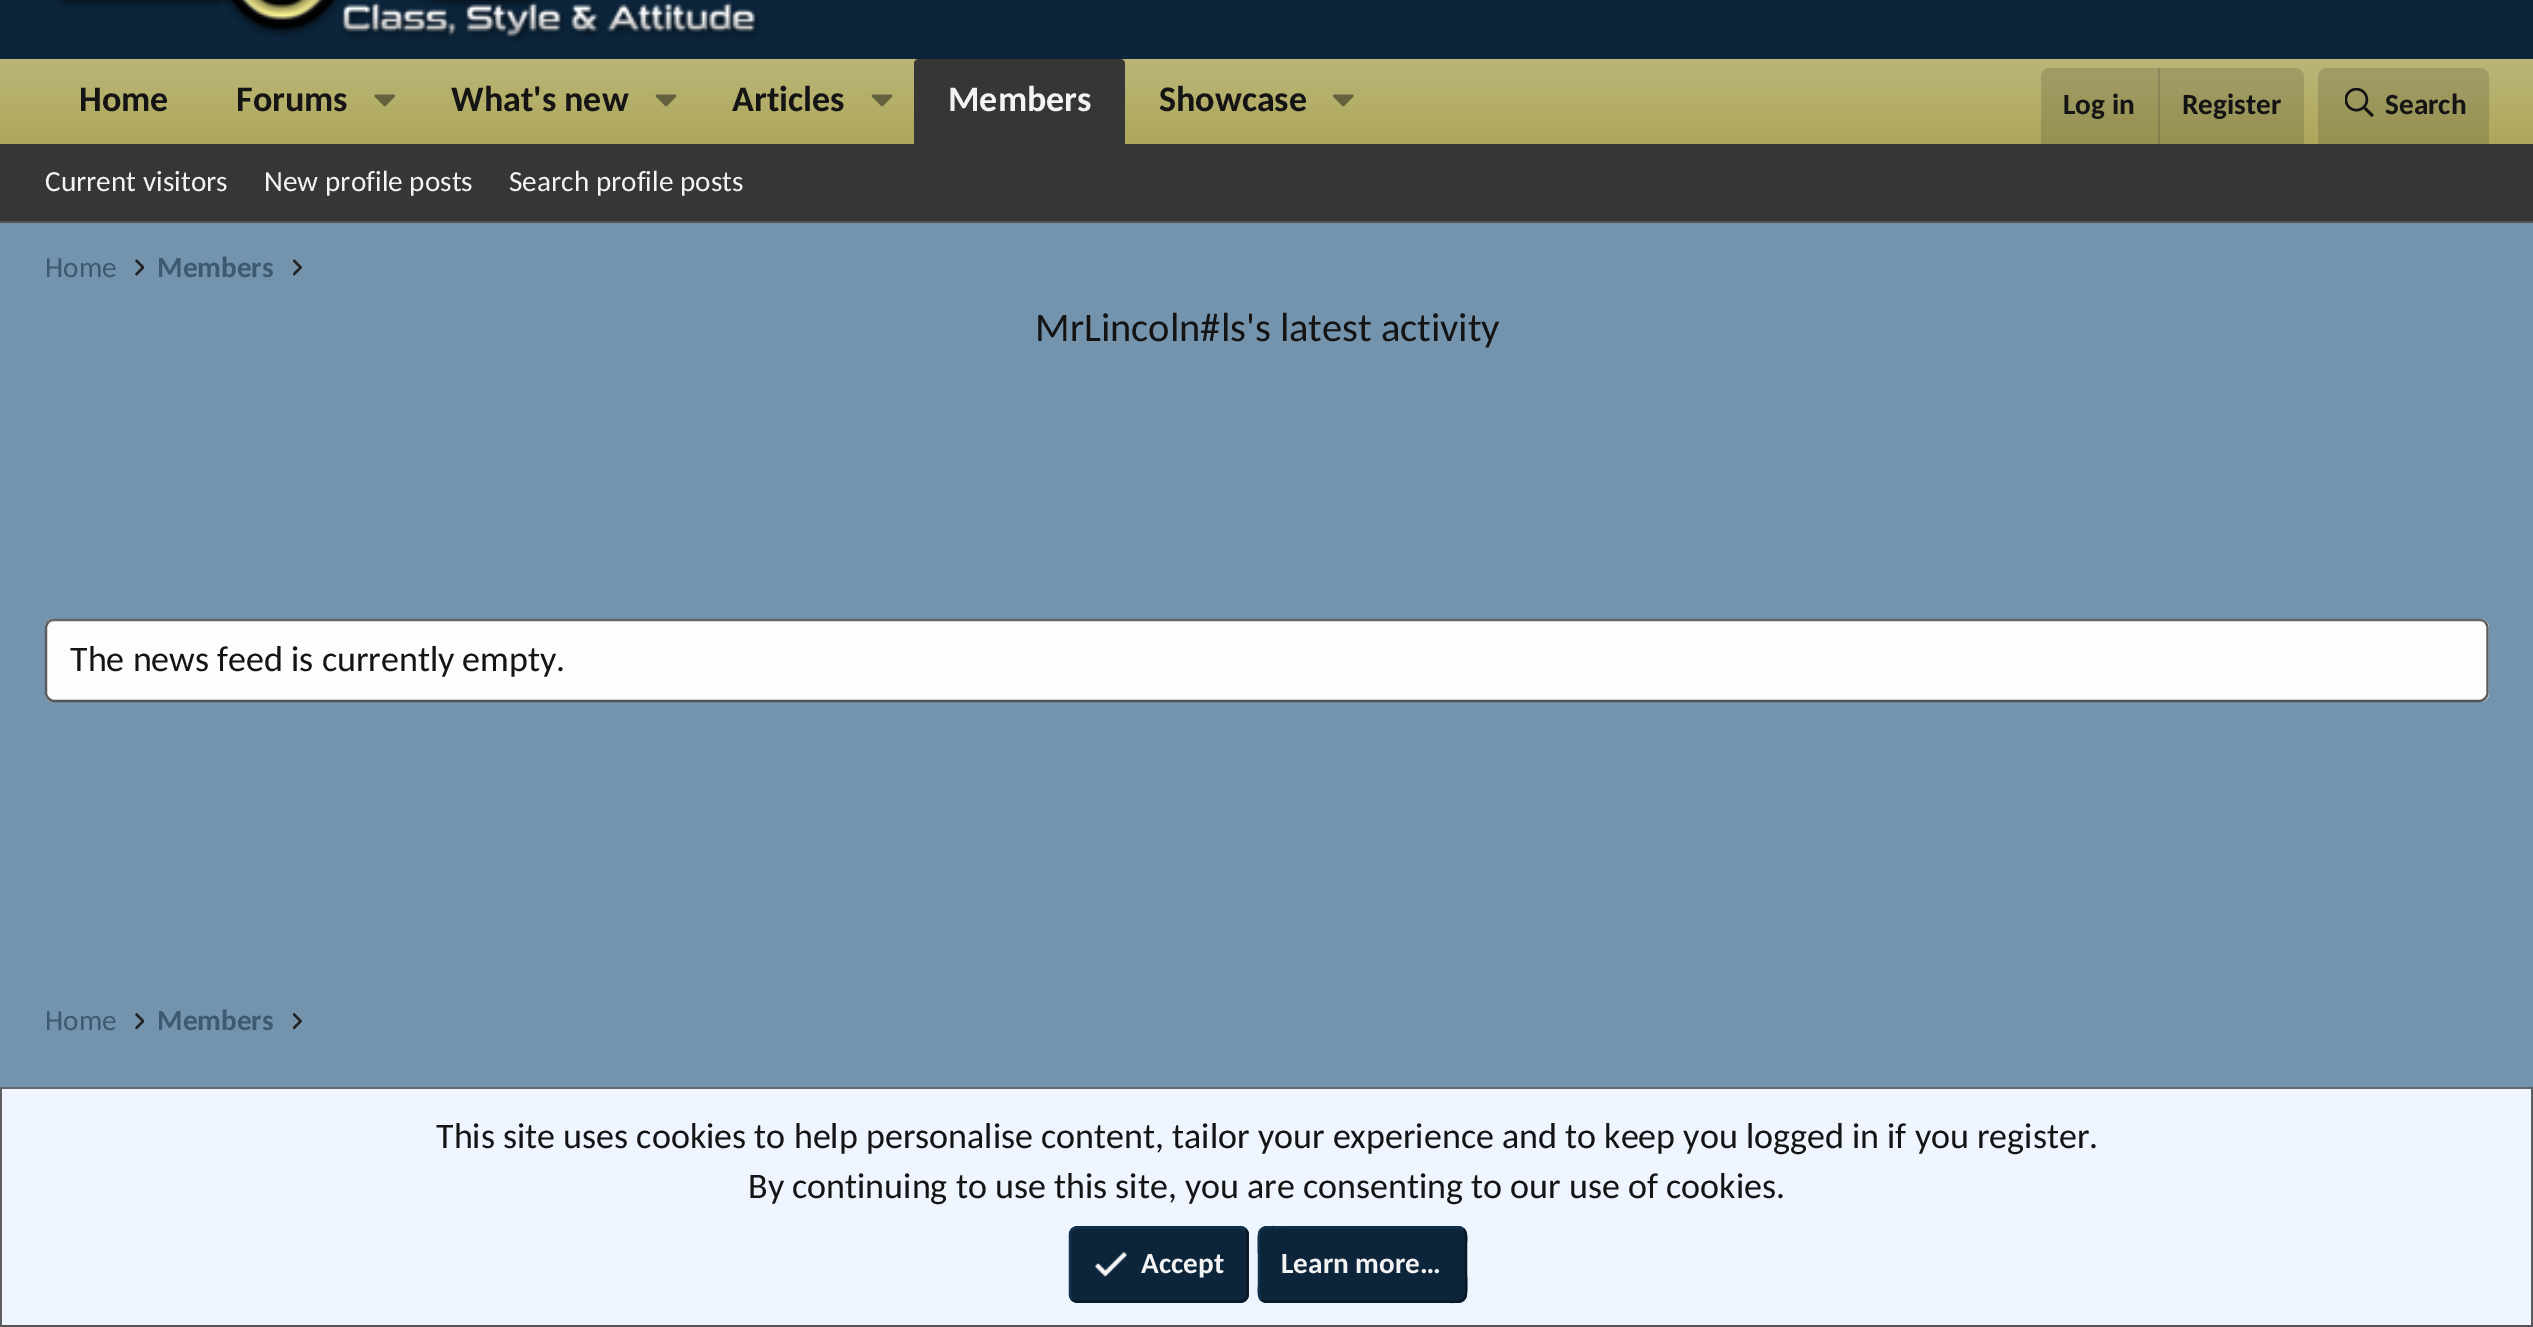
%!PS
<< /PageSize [2533 1327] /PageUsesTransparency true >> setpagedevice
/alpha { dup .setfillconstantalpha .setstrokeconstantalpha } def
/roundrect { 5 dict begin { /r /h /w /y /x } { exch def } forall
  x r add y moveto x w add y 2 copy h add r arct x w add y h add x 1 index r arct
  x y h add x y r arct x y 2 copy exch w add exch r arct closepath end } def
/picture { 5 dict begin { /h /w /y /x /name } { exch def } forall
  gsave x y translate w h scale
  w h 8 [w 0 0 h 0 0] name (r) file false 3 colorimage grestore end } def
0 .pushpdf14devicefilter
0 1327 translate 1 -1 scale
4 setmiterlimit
0.455 0.576 0.678 setrgbcolor
0 0 2533 1327 rectfill
0.047 0.145 0.231 setrgbcolor
0 0 2533 59 rectfill
(img1.rgb) 55 0 705 43 picture
gsave newpath 0 59 moveto 2533 59 lineto 2533 144 lineto 0 144 lineto closepath clip newpath
<< /ShadingType 2 /ColorSpace /DeviceRGB /Coords [1267 58 1267 144] /Extend [true true] /Function << /FunctionType 2 /Domain [0 1] /C0 [0.733 0.714 0.471] /C1 [0.678 0.655 0.357] /N 1 >> >> shfill grestore
/Carlito-Bold [36 0 0 -36 0 0] selectfont
0.078 setgray
79 111 moveto (Home) show
236 111 moveto (Forums) show
(img2.rgb) 374 94 22 13 picture
451 111 moveto (What's new) show
(img3.rgb) 655 94 22 13 picture
732 111 moveto (Articles) show
(img3.rgb) 871 94 22 13 picture
0.212 setgray
newpath 919 59 moveto 1120 59 lineto 1123 59 1125 61 1125 64 curveto 1125 144 lineto 914 144 lineto 914 64 lineto 914 61 916 59 919 59 curveto closepath fill
0.953 setgray
948 111 moveto (Members) show
0.078 setgray
1159 111 moveto (Showcase) show
(img4.rgb) 1332 94 22 13 picture
0.15 alpha
newpath 2050 68 moveto 2295 68 lineto 2300 68 2304 72 2304 77 curveto 2304 144 lineto 2041 144 lineto 2041 77 lineto 2041 72 2045 68 2050 68 curveto closepath fill
/Carlito-Bold [29.25 0 0 -29.25 0 0] selectfont
1 alpha
2063 114 moveto (Log in) show
0.15 alpha
2158 68 2 76 rectfill
1 alpha
2182 114 moveto (Register) show
0.15 alpha
newpath 2327 68 moveto 2480 68 lineto 2485 68 2489 72 2489 77 curveto 2489 144 lineto 2318 144 lineto 2318 77 lineto 2318 72 2322 68 2327 68 curveto closepath fill
1 alpha
(img5.rgb) 2345 88 29 29 picture
2385 114 moveto (Search) show
0.212 setgray
0 144 2533 77 rectfill
0.325 setgray
0 221 2533 2 rectfill
/Carlito-Regular [29.25 0 0 -29.25 0 0] selectfont
0.953 setgray
45 191 moveto (Current visitors) show
264 191 moveto (New profile posts) show
509 191 moveto (Search profile posts) show
0.243 0.353 0.447 setrgbcolor
45 277 moveto (Home) show
(img6.rgb) 135 259 9 17 picture
/Carlito-Bold [29.25 0 0 -29.25 0 0] selectfont
157 277 moveto (Members) show
(img7.rgb) 293 259 9 17 picture
/Carlito-Regular [40.5 0 0 -40.5 0 0] selectfont
0.078 setgray
1035 341 moveto (MrLincoln#ls's latest activity) show
0.988 0.992 1 setrgbcolor
45 619 2444 83 9 roundrect fill
0.404 setgray
2.2 setlinewidth
newpath 48.5 622 moveto 50 620.5 52 620 54 620 curveto 2479.5 620 lineto 2481.5 620 2483.5 620.5 2485 622 curveto stroke
0.365 setgray
newpath 2485 622 moveto 2486.5 623.5 2487.5 625.5 2487.5 628 curveto 2487.5 693 lineto 2487.5 695 2486.5 697 2485 698.5 curveto stroke
0.325 setgray
newpath 2485 698.5 moveto 2483.5 700 2481.5 701 2479.5 701 curveto 54 701 lineto 52 701 50 700 48.5 698.5 curveto stroke
0.365 setgray
newpath 48.5 698.5 moveto 47 697 46 695 46 693 curveto 46 628 lineto 46 625.5 47 623.5 48.5 622 curveto stroke
/Carlito-Regular [36 0 0 -36 0 0] selectfont
0.078 setgray
70 671 moveto (The news feed is currently empty.) show
/Carlito-Regular [29.25 0 0 -29.25 0 0] selectfont
0.243 0.353 0.447 setrgbcolor
45 1030 moveto (Home) show
(img8.rgb) 135 1013 9 17 picture
/Carlito-Bold [29.25 0 0 -29.25 0 0] selectfont
157 1030 moveto (Members) show
(img9.rgb) 293 1013 9 17 picture
0.937 0.961 1 setrgbcolor
2 1089 2529 236 rectfill
0.404 setgray
0 1087 2533 2 rectfill
0.365 setgray
2531 1087 2 240 rectfill
0.325 setgray
0 1325 2533 2 rectfill
0.365 setgray
0 1087 2 240 rectfill
/Carlito-Regular [36 0 0 -36 0 0] selectfont
0.078 setgray
436 1148 moveto (This site uses cookies to help personalise content, tailor your experience and to keep you logged in if you register.) show
748 1198 moveto (By continuing to use this site, you are consenting to our use of cookies.) show
0.047 0.145 0.231 setrgbcolor
1069 1226 180 77 9 roundrect fill
0.031 0.094 0.149 setrgbcolor
newpath 1245.5 1229.5 moveto 1247 1231 1247.5 1233 1247.5 1235 curveto 1247.5 1294 lineto 1247.5 1296 1247 1298 1245.5 1299.5 curveto 1244 1301 1242 1301.5 1240 1301.5 curveto 1078 1301.5 lineto 1075.5 1301.5 1073.5 1301 1072 1299.5 curveto stroke
0.063 0.196 0.314 setrgbcolor
newpath 1072 1299.5 moveto 1070.5 1298 1070 1296 1070 1294 curveto 1070 1235 lineto 1070 1233 1070.5 1231 1072 1229.5 curveto 1073.5 1228 1075.5 1227.5 1078 1227.5 curveto 1240 1227.5 lineto 1242 1227.5 1244 1228 1245.5 1229.5 curveto stroke
(img10.rgb) 1095 1251 32 26 picture
/Carlito-Bold [29.25 0 0 -29.25 0 0] selectfont
0.953 setgray
1141 1273 moveto (Accept) show
0.047 0.145 0.231 setrgbcolor
1258 1226 209 77 9 roundrect fill
0.031 0.094 0.149 setrgbcolor
newpath 1463.5 1229.5 moveto 1467.5 1233.5 1466 1240.5 1466 1245 curveto 1466 1264.5 lineto 1466 1308.5 1472.5 1301.5 1426 1301.5 curveto 1267 1301.5 lineto 1264.5 1301.5 1262.5 1301 1261 1299.5 curveto stroke
0.063 0.196 0.314 setrgbcolor
newpath 1261 1299.5 moveto 1257.5 1295.5 1259 1288.5 1259 1284 curveto 1259 1264.5 lineto 1259 1220.5 1252 1227.5 1298.5 1227.5 curveto 1458 1227.5 lineto 1460 1227.5 1462 1228 1463.5 1229.5 curveto stroke
0.953 setgray
1281 1273 moveto (Learn more…) show
.poppdf14devicefilter showpage
